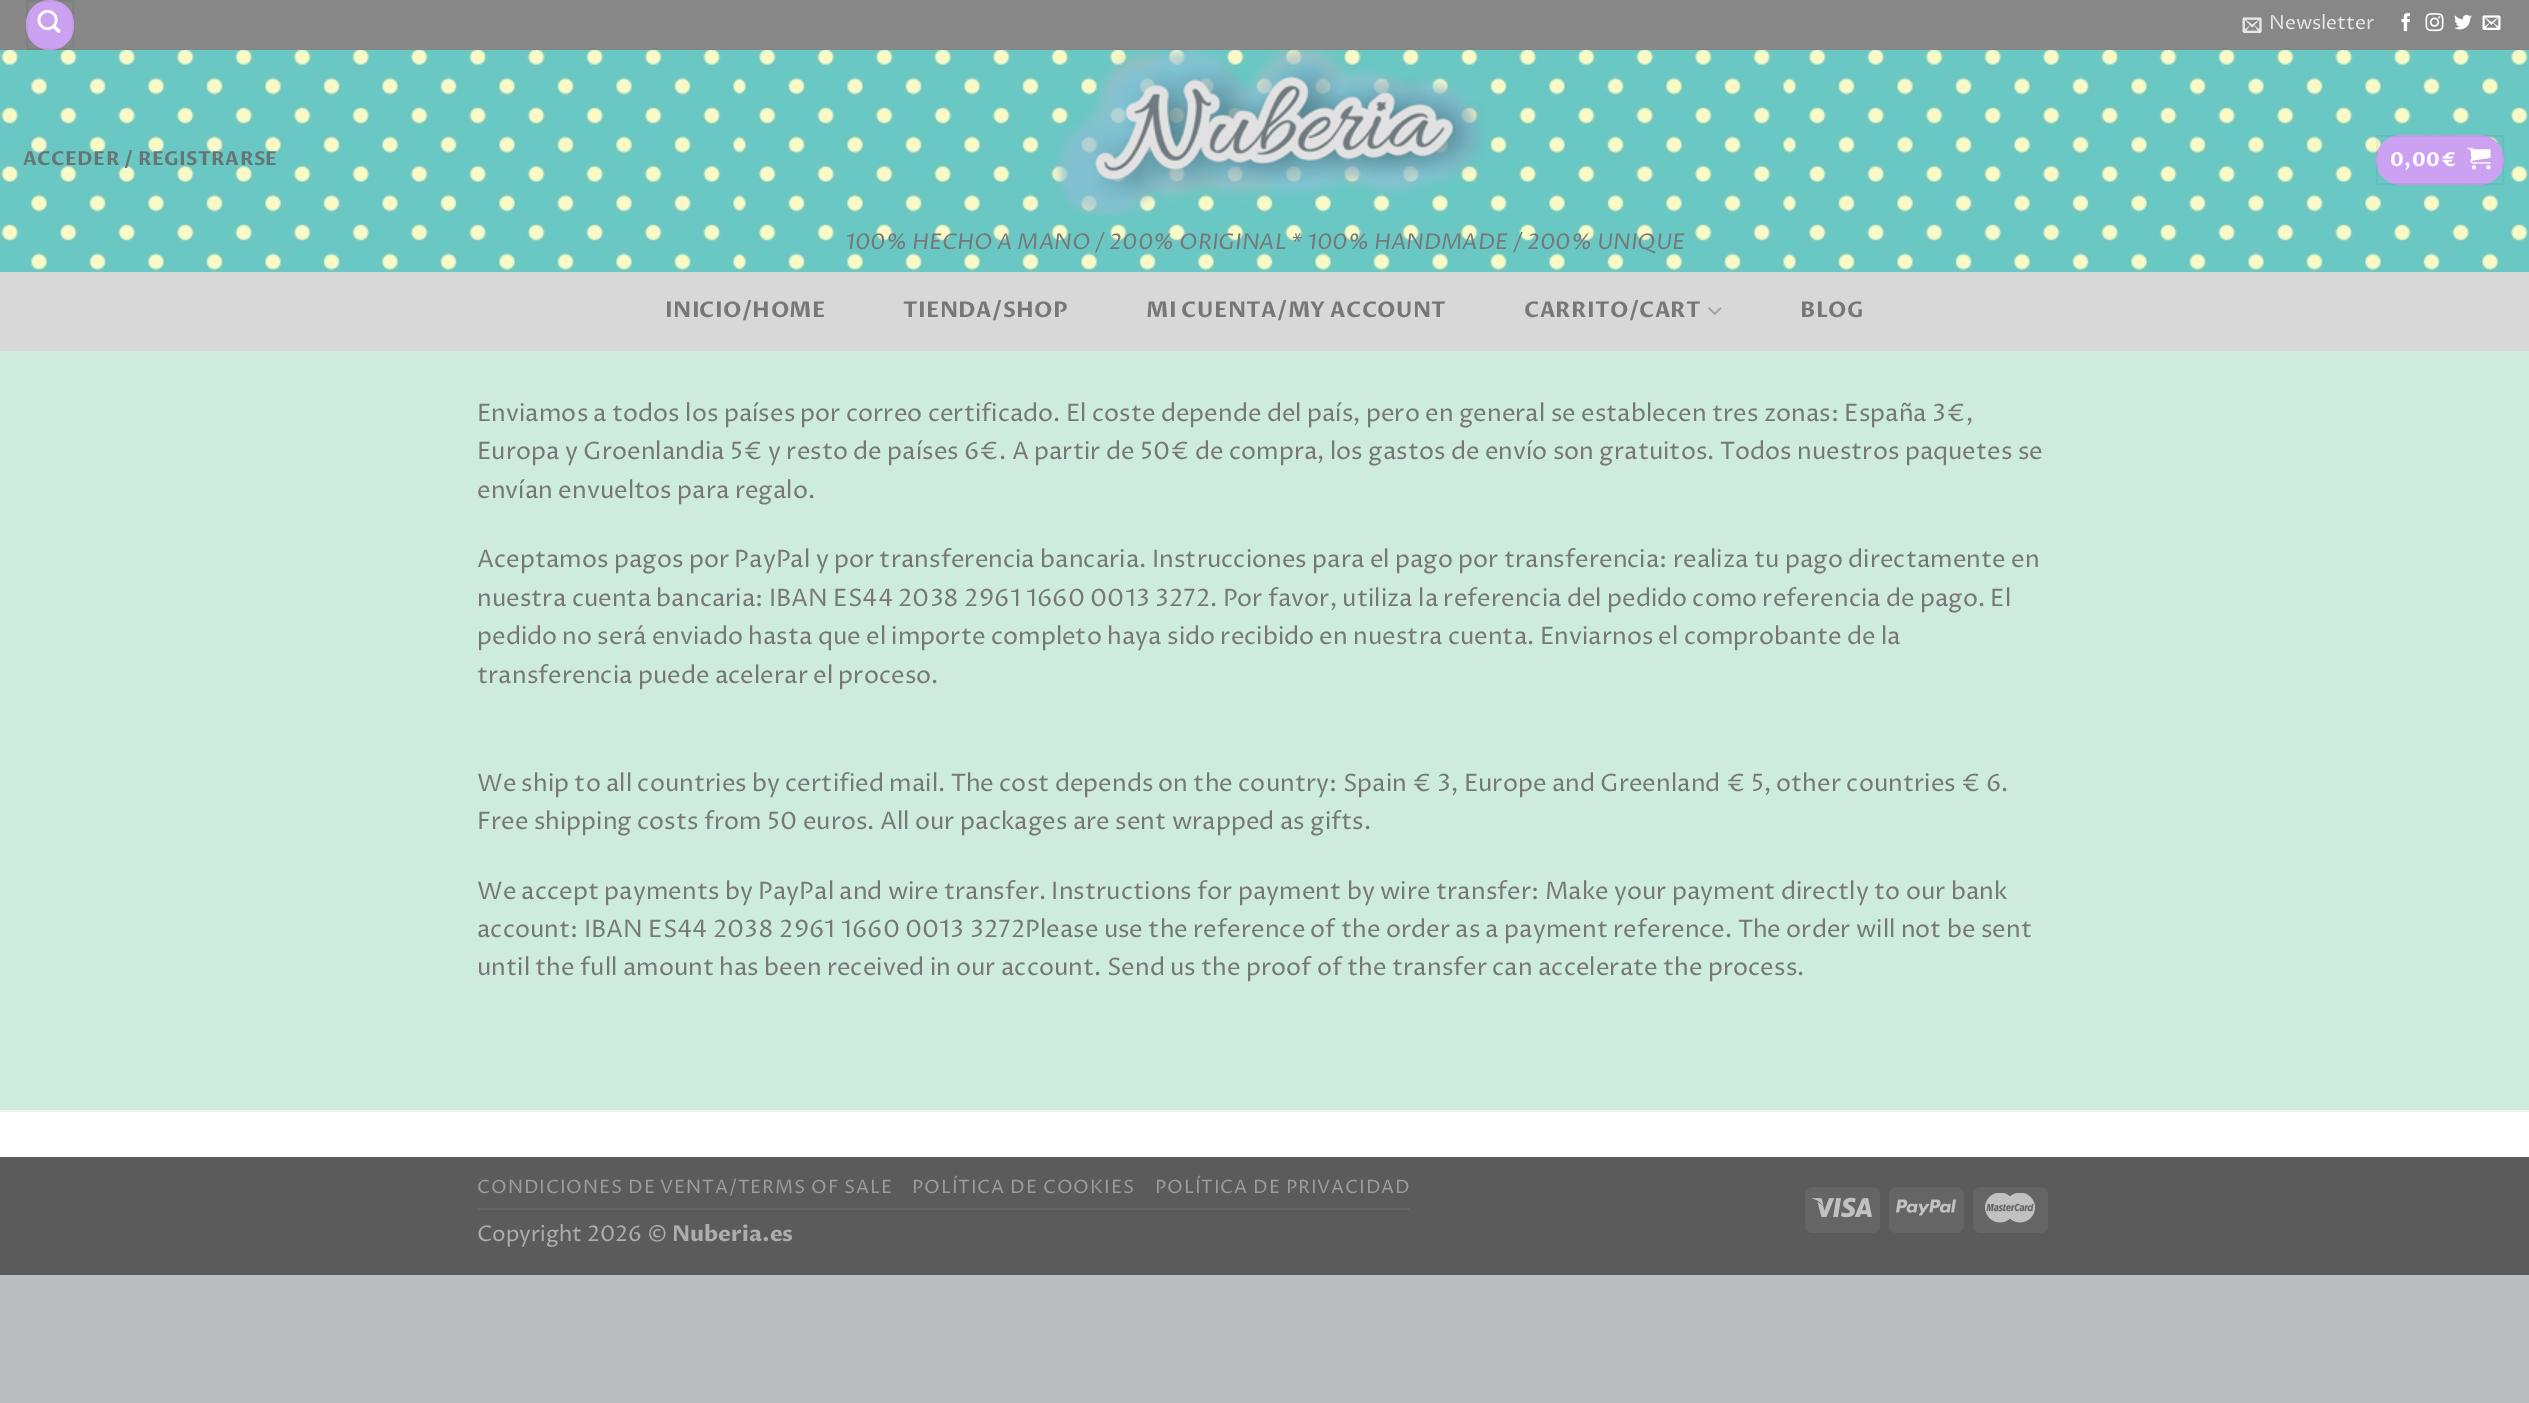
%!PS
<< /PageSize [2529 1403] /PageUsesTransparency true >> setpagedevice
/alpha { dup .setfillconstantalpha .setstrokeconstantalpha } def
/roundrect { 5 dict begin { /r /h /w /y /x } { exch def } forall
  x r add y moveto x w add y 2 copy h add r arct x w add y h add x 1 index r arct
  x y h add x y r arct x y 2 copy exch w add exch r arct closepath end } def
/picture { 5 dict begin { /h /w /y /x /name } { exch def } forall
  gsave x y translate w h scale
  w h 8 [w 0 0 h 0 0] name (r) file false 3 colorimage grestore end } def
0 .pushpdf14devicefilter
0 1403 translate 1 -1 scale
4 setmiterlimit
0.725 0.741 0.753 setrgbcolor
0 0 2529 1403 rectfill
0.529 setgray
0 0 2529 50 rectfill
0.8 0.631 0.945 setrgbcolor
26 0 48 50 24 roundrect fill
0.05 alpha
0 setgray
2 setlinewidth
27 1 46 48 rectstroke
1 alpha
(img1.rgb) 37 9 24 24 picture
(img2.rgb) 2242 17 20 16 picture
/ProzaLibre-Regular [19.25 0 0 -19.25 0 0] selectfont
0.906 setgray
2269 29 moveto (Newsletter) show
(img3.rgb) 2401 13 9 19 picture
(img4.rgb) 2425 13 19 19 picture
(img5.rgb) 2454 14 18 16 picture
(img6.rgb) 2482 15 19 15 picture
(img7.rgb) 0 50 2529 222 picture
/ProzaLibre-Bold [19.25 0 0 -19.25 0 0] selectfont
0.404 0.459 0.455 setrgbcolor
23 165 moveto 0.4 0 (ACCEDER / REGISTRARSE) ashow
0.8 0.631 0.945 setrgbcolor
2376 135 128 50 25 roundrect fill
0.05 alpha
0 setgray
2377 136 126 48 rectstroke
1 alpha
1 setgray
2390 166 moveto 0.5 0 (0,00€) ashow
(img8.rgb) 2467 147 24 23 picture
(img9.rgb) 1053 50 432 165 picture
/ProzaLibre-Italic [21.6 0 0 -21.6 0 0] selectfont
0.467 setgray
845 249 moveto (100% HECHO A MANO / 200% ORIGINAL * 100% HANDMADE / 200% UNIQUE) show
0.847 setgray
0 272 2529 79 rectfill
/ProzaLibre-Bold [21.6 0 0 -21.6 0 0] selectfont
0.467 setgray
665 317 moveto 0.4 0 (INICIO/HOME) ashow
903 317 moveto 0.4 0 (TIENDA/SHOP) ashow
1146 317 moveto 0.4 0 (MI CUENTA/MY ACCOUNT) ashow
1524 317 moveto 0.4 0 (CARRITO/CART) ashow
(img10.rgb) 1708 307 14 8 picture
1800 317 moveto 0.4 0 (BLOG) ashow
0.808 0.925 0.871 setrgbcolor
0 351 2529 759 rectfill
/ProzaLibre-Regular [24 0 0 -24 0 0] selectfont
0.467 setgray
477 421 moveto (Enviamos a todos los países por correo certificado. El coste depende del país, pero en general se establecen tres zonas: España 3€,) show
477 459 moveto (Europa y Groenlandia 5€ y resto de países 6€. A partir de 50€ de compra, los gastos de envío son gratuitos. Todos nuestros paquetes se) show
477 498 moveto (envían envueltos para regalo.) show
477 567 moveto (Aceptamos pagos por PayPal y por transferencia bancaria. Instrucciones para el pago por transferencia: realiza tu pago directamente en) show
477 606 moveto (nuestra cuenta bancaria: IBAN ES44 2038 2961 1660 0013 3272. Por favor, utiliza la referencia del pedido como referencia de pago. El) show
477 644 moveto (pedido no será enviado hasta que el importe completo haya sido recibido en nuestra cuenta. Enviarnos el comprobante de la) show
477 683 moveto (transferencia puede acelerar el proceso.) show
477 791 moveto (We ship to all countries by certified mail. The cost depends on the country: Spain € 3, Europe and Greenland € 5, other countries € 6.) show
477 829 moveto (Free shipping costs from 50 euros. All our packages are sent wrapped as gifts.) show
477 899 moveto (We accept payments by PayPal and wire transfer. Instructions for payment by wire transfer: Make your payment directly to our bank) show
477 937 moveto (account: IBAN ES44 2038 2961 1660 0013 3272Please use the reference of the order as a payment reference. The order will not be sent) show
477 975 moveto (until the full amount has been received in our account. Send us the proof of the transfer can accelerate the process.) show
1 setgray
0 1112 2529 45 rectfill
0.949 setgray
0 1110 2529 2 rectfill
0.357 setgray
0 1157 2529 118 rectfill
0.396 setgray
477 1208 933 2 rectfill
/ProzaLibre-Regular [18.4 0 0 -18.4 0 0] selectfont
0.616 setgray
477 1193 moveto 0.9 0 (CONDICIONES DE VENTA/TERMS OF SALE) ashow
912 1193 moveto 0.9 0 (POLÍTICA DE COOKIES) ashow
1155 1193 moveto 0.9 0 (POLÍTICA DE PRIVACIDAD) ashow
/ProzaLibre-Regular [21.6 0 0 -21.6 0 0] selectfont
0.678 setgray
477 1241 moveto (Copyright 2026 ©) show
/ProzaLibre-Bold [21.6 0 0 -21.6 0 0] selectfont
672 1241 moveto (Nuberia.es) show
0.396 setgray
1805 1187 75 46 8 roundrect fill
(img11.rgb) 1812 1197 60 21 picture
1889 1187 75 46 8 roundrect fill
(img12.rgb) 1896 1199 60 17 picture
1973 1187 75 46 8 roundrect fill
(img13.rgb) 1985 1193 50 30 picture
.poppdf14devicefilter showpage
